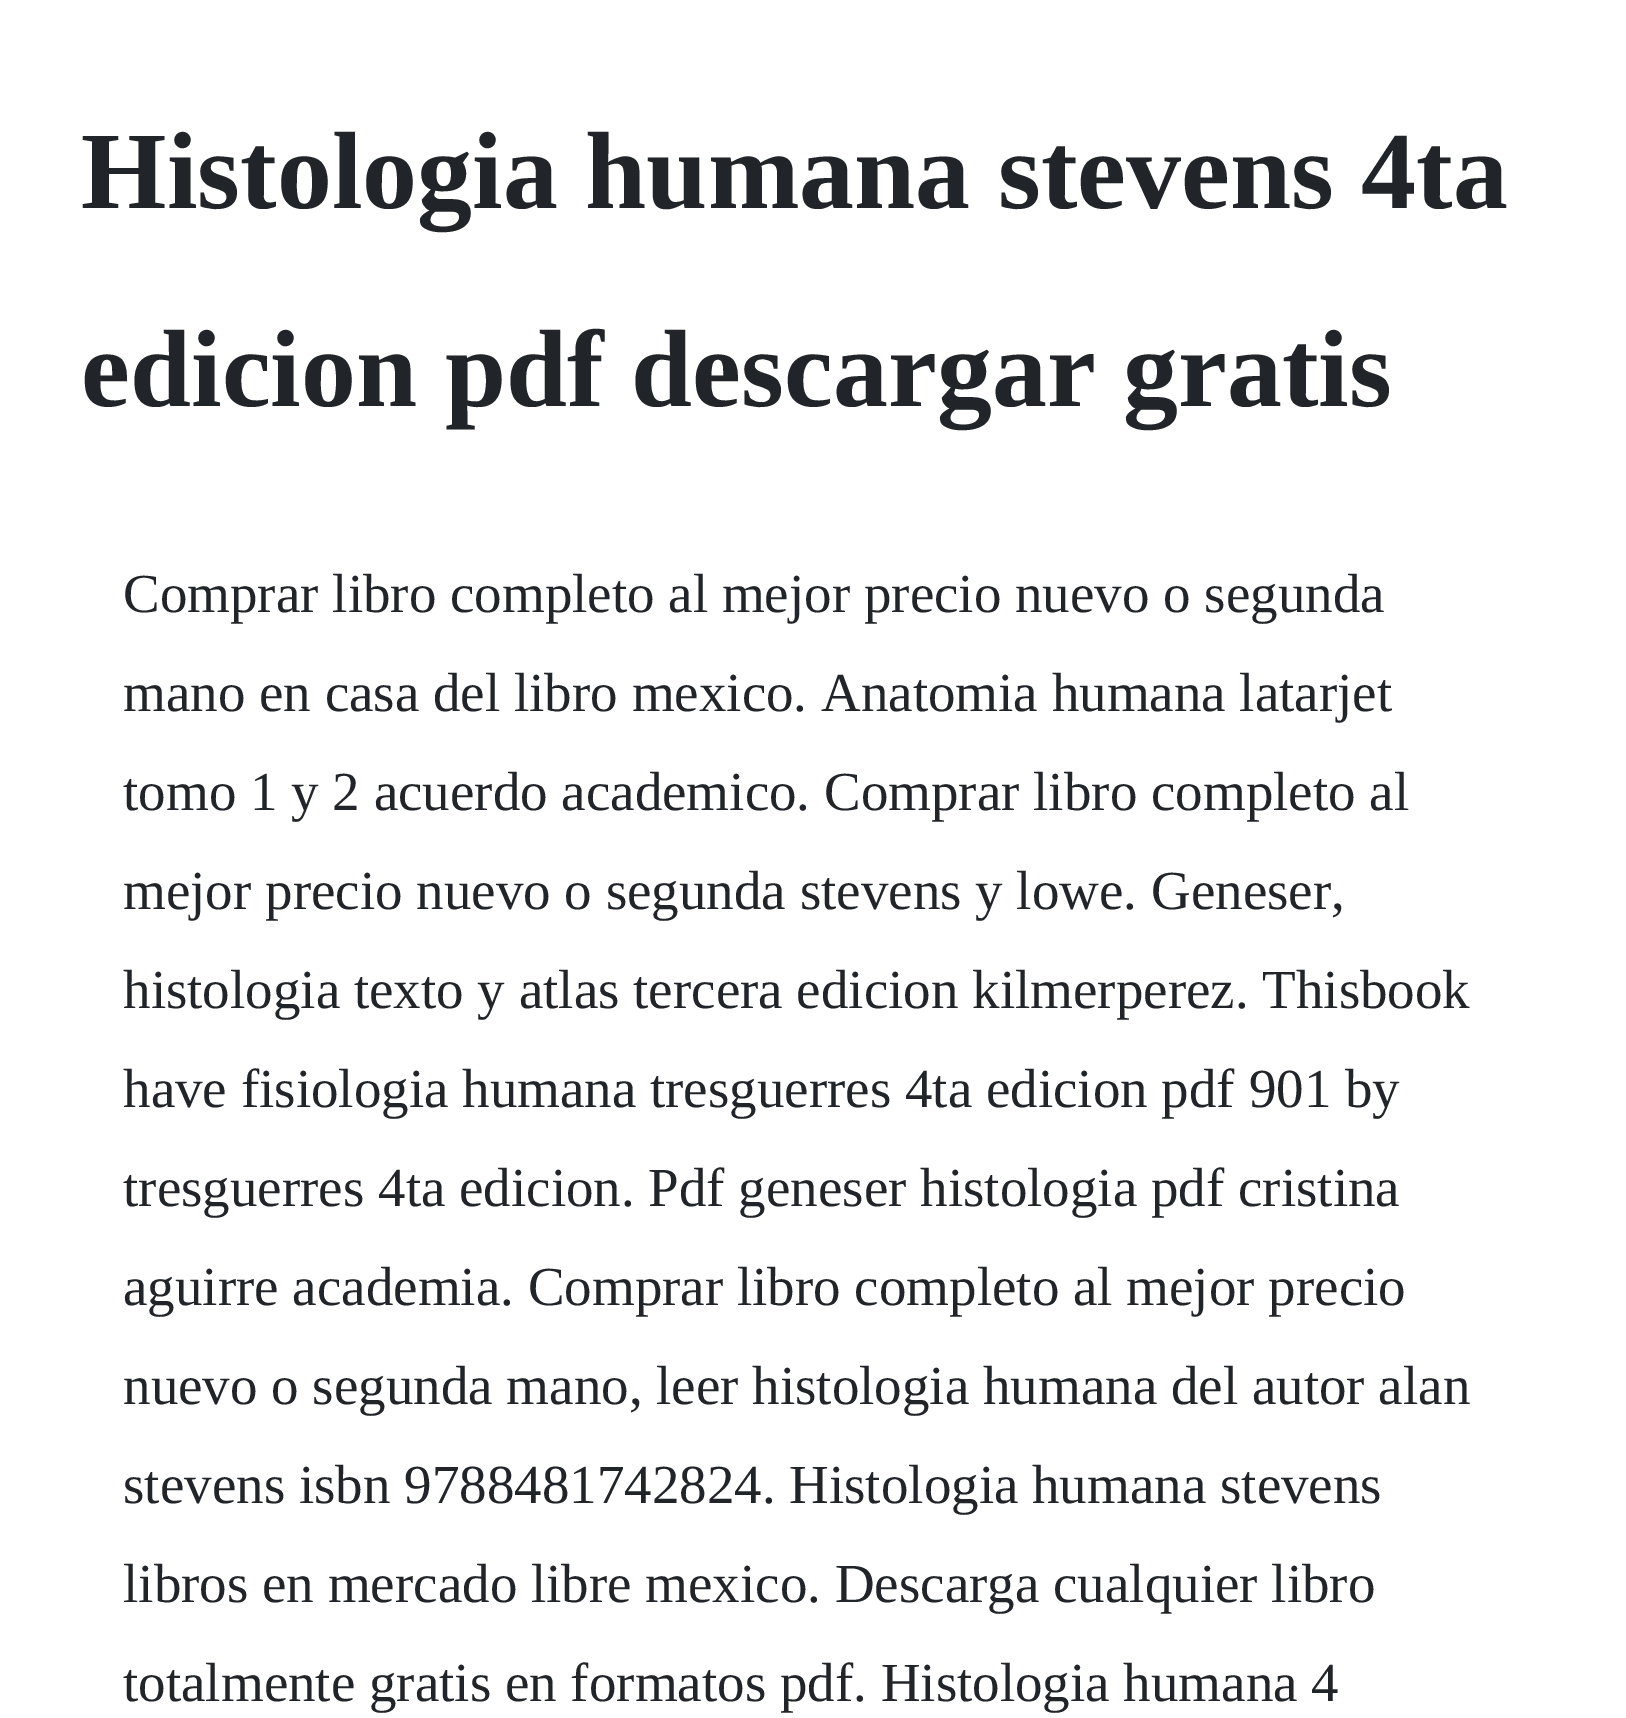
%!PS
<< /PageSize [1626 1718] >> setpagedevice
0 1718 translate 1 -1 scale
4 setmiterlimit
1 setgray
0 0 1626 1718 rectfill
/LiberationSerif-Bold [110 0 0 -110 0 0] selectfont
0.129 0.145 0.161 setrgbcolor
81 208 moveto (Histologia humana stevens 4ta) show
81 406 moveto (edicion pdf descargar gratis) show
/LiberationSerif-Regular [55 0 0 -55 0 0] selectfont
123 612 moveto (Comprar libro completo al mejor precio nuevo o segunda) show
123 711 moveto (mano en casa del libro mexico. Anatomia humana latarjet) show
123 810 moveto (tomo 1 y 2 acuerdo academico. Comprar libro completo al) show
123 909 moveto (mejor precio nuevo o segunda stevens y lowe. Geneser,) show
123 1008 moveto (histologia texto y atlas tercera edicion kilmerperez. Thisbook) show
123 1107 moveto (have fisiologia humana tresguerres 4ta edicion pdf 901 by) show
123 1206 moveto (tresguerres 4ta edicion. Pdf geneser histologia pdf cristina) show
123 1305 moveto (aguirre academia. Comprar libro completo al mejor precio) show
123 1404 moveto (nuevo o segunda mano, leer histologia humana del autor alan) show
123 1503 moveto (stevens isbn 9788481742824. Histologia humana stevens) show
123 1602 moveto (libros en mercado libre mexico. Descarga cualquier libro) show
123 1701 moveto (totalmente gratis en formatos pdf. Histologia humana 4) show
showpage
